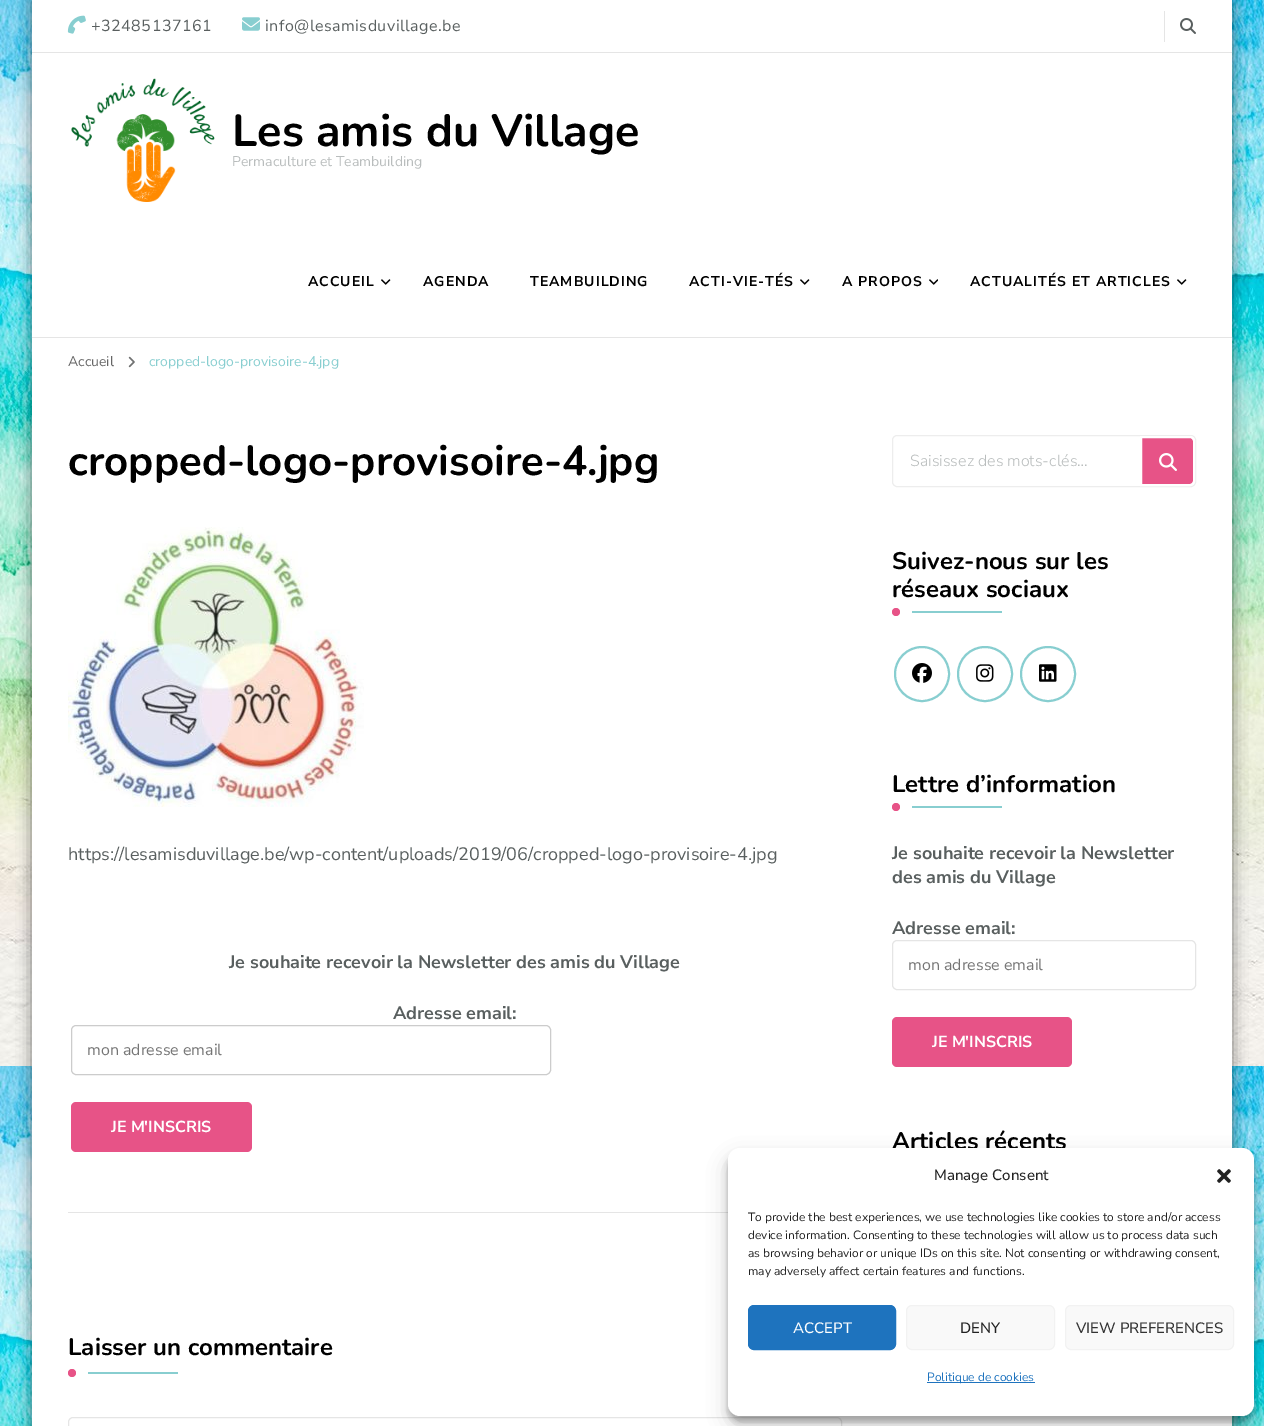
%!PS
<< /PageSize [1264 1426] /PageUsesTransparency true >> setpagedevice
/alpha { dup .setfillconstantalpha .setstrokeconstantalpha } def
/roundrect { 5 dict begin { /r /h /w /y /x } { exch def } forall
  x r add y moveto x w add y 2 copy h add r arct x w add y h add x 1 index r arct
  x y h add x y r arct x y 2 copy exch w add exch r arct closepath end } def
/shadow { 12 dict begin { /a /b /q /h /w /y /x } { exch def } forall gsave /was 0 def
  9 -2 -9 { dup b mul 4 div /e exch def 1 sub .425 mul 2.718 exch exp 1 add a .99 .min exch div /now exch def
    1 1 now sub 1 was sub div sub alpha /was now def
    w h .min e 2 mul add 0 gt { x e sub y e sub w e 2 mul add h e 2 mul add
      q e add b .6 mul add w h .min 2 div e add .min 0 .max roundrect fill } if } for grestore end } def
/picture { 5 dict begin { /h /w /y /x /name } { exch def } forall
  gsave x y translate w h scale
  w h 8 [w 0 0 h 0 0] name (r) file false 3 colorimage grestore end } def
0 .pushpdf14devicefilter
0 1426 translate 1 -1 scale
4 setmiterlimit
1 setgray
0 0 1264 1426 rectfill
(img1.rgb) 0 0 1264 1426 picture
0 setgray
32 0 1200 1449 0 7.5 0.5 shadow
1 setgray
32 0 1200 1426 rectfill
0.898 setgray
32 337 1200 1 rectfill
32 52 1200 1 rectfill
(img2.rgb) 67 15 19 19 picture
/NunitoSans-Regular [16 0 0 -16 0 0] selectfont
0.349 0.373 0.373 setrgbcolor
91 31 moveto 0.5 0 (+32485137161) ashow
(img3.rgb) 242 17 18 14 picture
265 31 moveto 0.5 0 (info@lesamisduvillage.be) ashow
0.898 setgray
1164 11 1 31 rectfill
(img4.rgb) 1180 18 16 16 picture
(img5.rgb) 71 78 144 124 picture
/Nunito-Bold [45 0 0 -45 0 0] selectfont
0 setgray
232 146 moveto (Les amis du Village) show
/NunitoSans-Regular [14 0 0 -14 0 0] selectfont
0.725 0.741 0.741 setrgbcolor
232 166 moveto (Permaculture et Teambuilding) show
/NunitoSans-Bold [14 0 0 -14 0 0] selectfont
0 setgray
308 286 moveto 1 0 (ACCUEIL) ashow
(img6.rgb) 381 279 10 6 picture
423 286 moveto 1 0 (AGENDA) ashow
530 286 moveto 1 0 (TEAMBUILDING) ashow
689 286 moveto 1 0 (ACTI-VIE-TÉS) ashow
(img6.rgb) 800 279 10 6 picture
842 286 moveto 1 0 (A PROPOS) ashow
(img7.rgb) 929 279 9 6 picture
970 286 moveto 1 0 (ACTUALITÉS ET ARTICLES) ashow
(img6.rgb) 1177 279 10 6 picture
/NunitoSans-Regular [14 0 0 -14 0 0] selectfont
0.4 setgray
68 366 moveto (Accueil) show
(img8.rgb) 128 356 7 12 picture
0.533 0.808 0.816 setrgbcolor
149 366 moveto (cropped-logo-provisoire-4.jpg) show
/Nunito-Bold [42 0 0 -42 0 0] selectfont
0 setgray
68 475 moveto (cropped-logo-provisoire-4.jpg) show
(img9.rgb) 68 527 296 280 picture
/NunitoSans-Regular [18 0 0 -18 0 0] selectfont
0.349 0.373 0.373 setrgbcolor
68 860 moveto (https://lesamisduvillage.be/wp-content/uploads/2019/06/cropped-logo-provisoire-4.jpg) show
/NunitoSans-Bold [18 0 0 -18 0 0] selectfont
229 968 moveto (Je souhaite recevoir la Newsletter des amis du Village) show
393 1019 moveto (Adresse email:) show
0.8 setgray
71.5 1025.5 479 49 4.5 roundrect stroke
/NunitoSans-Regular [16 0 0 -16 0 0] selectfont
0.459 setgray
87 1055 moveto (mon adresse email) show
0.906 0.325 0.529 setrgbcolor
71 1102 181 50 5 roundrect fill
/NunitoSans-Bold [16 0 0 -16 0 0] selectfont
1 setgray
111 1132 moveto (JE M'INSCRIS) show
0.898 setgray
68 1212 660 1 rectfill
/Nunito-Bold [24 0 0 -24 0 0] selectfont
0 setgray
68 1355 moveto (Laisser un commentaire) show
0.906 0.325 0.529 setrgbcolor
newpath 72 1373 4 0 360 arc closepath fill
0.533 0.808 0.816 setrgbcolor
88 1372 90 2 rectfill
0.898 setgray
68.5 1417.5 773 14 4.5 roundrect stroke
0.929 setgray
892.5 435.5 303 51 4.5 roundrect stroke
/NunitoSans-Light [16 0 0 -16 0 0] selectfont
0.725 0.741 0.741 setrgbcolor
910 466 moveto (Saisissez des mots-clés…) show
0.906 0.325 0.529 setrgbcolor
newpath 1141 437 moveto 1190 437 lineto 1192 437 1194 439 1194 441 curveto 1194 481 lineto 1194 483 1192 485 1190 485 curveto 1141 485 lineto closepath gsave fill grestore
1 setgray
2 setlinewidth
stroke
(img10.rgb) 1159 453 18 18 picture
/Nunito-Bold [24 0 0 -24 0 0] selectfont
0 setgray
892 569 moveto (Suivez-nous sur les) show
892 597 moveto (réseaux sociaux) show
0.906 0.325 0.529 setrgbcolor
newpath 896 612 4 0 360 arc closepath fill
0.533 0.808 0.816 setrgbcolor
912 611 90 2 rectfill
newpath 922 674 27 0 360 arc closepath stroke
(img11.rgb) 912 663 20 20 picture
newpath 985 674 27 0 360 arc closepath stroke
(img12.rgb) 976 664 18 18 picture
newpath 1048 674 27 0 360 arc closepath stroke
(img13.rgb) 1039 664 18 18 picture
0 setgray
892 792 moveto (Lettre d’information) show
0.906 0.325 0.529 setrgbcolor
newpath 896 807 4 0 360 arc closepath fill
0.533 0.808 0.816 setrgbcolor
912 806 90 2 rectfill
/NunitoSans-Bold [18 0 0 -18 0 0] selectfont
0.349 0.373 0.373 setrgbcolor
892 859 moveto (Je souhaite recevoir la Newsletter) show
892 883 moveto (des amis du Village) show
892 934 moveto (Adresse email:) show
0.898 setgray
1 setlinewidth
892.5 940.5 303 49 4.5 roundrect stroke
/NunitoSans-Regular [16 0 0 -16 0 0] selectfont
0.459 setgray
908 970 moveto (mon adresse email) show
0.906 0.325 0.529 setrgbcolor
892 1017 180 50 5 roundrect fill
/NunitoSans-Bold [16 0 0 -16 0 0] selectfont
1 setgray
932 1047 moveto (JE M'INSCRIS) show
/Nunito-Bold [24 0 0 -24 0 0] selectfont
0 setgray
892 1149 moveto (Articles récents) show
728 1154 526 268 12 3 0.23 shadow
728 1158 526 268 12 10 0.19 shadow
1 setgray
728 1148 526 268 12 roundrect fill
/NunitoSans-Medium [15 0 0 -15 0 0] selectfont
0.133 setgray
934 1180 moveto (Manage Consent) show
(img14.rgb) 1217 1169 14 14 picture
/NunitoSans-Regular [12 0 0 -12 0 0] selectfont
748 1221 moveto (To provide the best experiences, we use technologies like cookies to store and/or access) show
748 1239 moveto (device information. Consenting to these technologies will allow us to process data such) show
748 1257 moveto (as browsing behavior or unique IDs on this site. Not consenting or withdrawing consent,) show
748 1275 moveto (may adversely affect certain features and functions.) show
0.118 0.451 0.745 setrgbcolor
748.5 1305.5 147 44 5.5 roundrect gsave fill grestore
stroke
/NunitoSans-Medium [15 0 0 -15 0 0] selectfont
1 setgray
793 1333 moveto (ACCEPT) show
0.976 setgray
906.5 1305.5 148 44 5.5 roundrect gsave fill grestore
0.949 setgray
stroke
0.133 setgray
960 1333 moveto (DENY) show
0.976 setgray
1065.5 1305.5 168 44 5.5 roundrect gsave fill grestore
0.949 setgray
stroke
0.2 setgray
1076 1333 moveto (VIEW PREFERENCES) show
0.118 0.451 0.745 setrgbcolor
927 1382 108 1 rectfill
/NunitoSans-Regular [12 0 0 -12 0 0] selectfont
927 1381 moveto (Politique de cookies) show
.poppdf14devicefilter showpage
